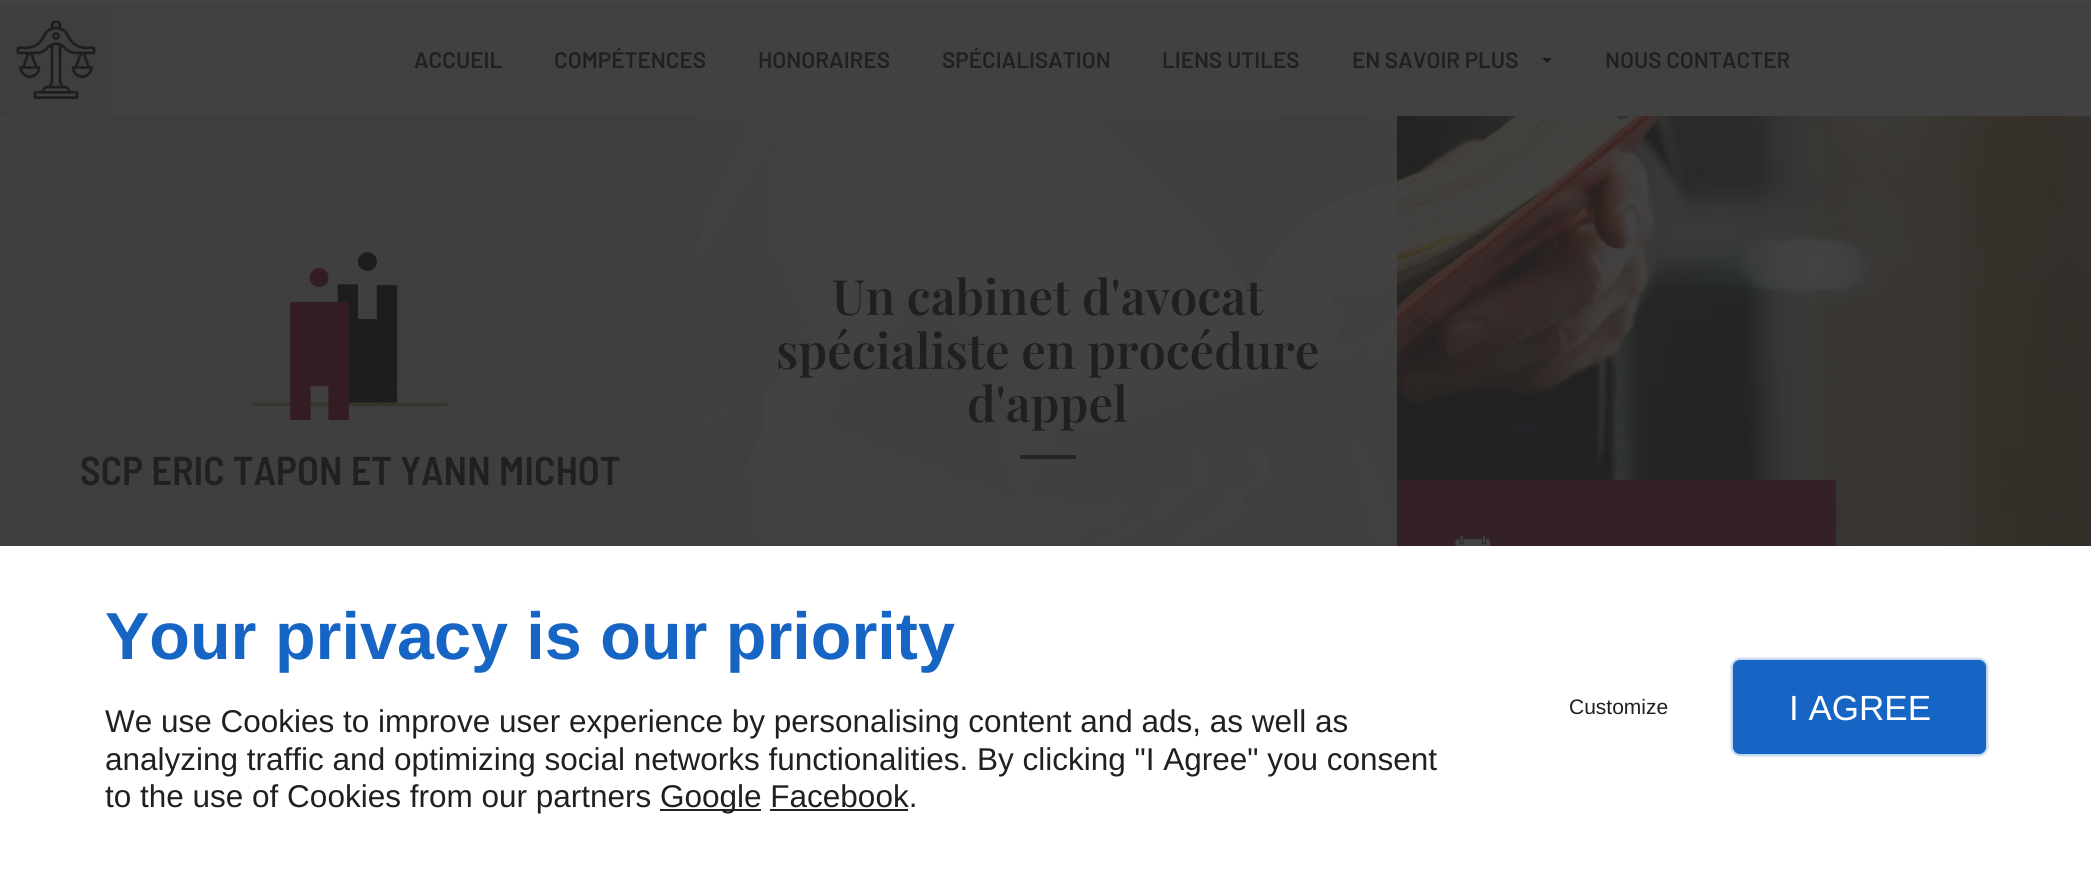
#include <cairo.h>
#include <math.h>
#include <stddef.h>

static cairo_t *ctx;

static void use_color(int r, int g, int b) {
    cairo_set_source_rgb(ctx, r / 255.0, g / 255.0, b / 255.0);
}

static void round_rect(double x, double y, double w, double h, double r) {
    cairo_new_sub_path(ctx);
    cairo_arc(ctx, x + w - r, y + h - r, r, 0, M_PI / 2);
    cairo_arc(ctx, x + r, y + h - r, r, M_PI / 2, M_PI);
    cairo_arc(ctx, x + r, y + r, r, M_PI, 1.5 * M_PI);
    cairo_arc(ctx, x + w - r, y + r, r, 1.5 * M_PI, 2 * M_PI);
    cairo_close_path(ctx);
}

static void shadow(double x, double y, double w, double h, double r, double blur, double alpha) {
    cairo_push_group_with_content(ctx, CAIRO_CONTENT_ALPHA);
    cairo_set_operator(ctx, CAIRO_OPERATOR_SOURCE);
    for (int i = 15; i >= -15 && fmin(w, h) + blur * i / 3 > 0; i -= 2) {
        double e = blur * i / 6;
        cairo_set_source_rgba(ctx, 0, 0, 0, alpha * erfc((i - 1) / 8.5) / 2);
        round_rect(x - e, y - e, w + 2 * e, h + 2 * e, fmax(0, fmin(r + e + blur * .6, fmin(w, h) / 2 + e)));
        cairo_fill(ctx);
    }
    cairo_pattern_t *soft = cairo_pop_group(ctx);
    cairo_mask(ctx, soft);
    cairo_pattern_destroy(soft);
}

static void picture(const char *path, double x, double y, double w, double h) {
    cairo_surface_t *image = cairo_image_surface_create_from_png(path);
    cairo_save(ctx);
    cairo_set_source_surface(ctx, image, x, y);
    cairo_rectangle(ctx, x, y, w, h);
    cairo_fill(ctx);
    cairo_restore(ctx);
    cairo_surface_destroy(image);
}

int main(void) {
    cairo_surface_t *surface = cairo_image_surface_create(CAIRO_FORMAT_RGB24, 2091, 869);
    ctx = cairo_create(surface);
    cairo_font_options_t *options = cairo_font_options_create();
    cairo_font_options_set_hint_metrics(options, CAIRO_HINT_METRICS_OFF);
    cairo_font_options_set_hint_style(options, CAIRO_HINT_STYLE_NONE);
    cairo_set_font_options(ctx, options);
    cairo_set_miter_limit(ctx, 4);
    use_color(255, 255, 255);
    cairo_paint(ctx);
    use_color(67, 67, 67);
    cairo_rectangle(ctx, 0, 0, 2091, 4);
    cairo_fill(ctx);
    use_color(65, 65, 65);
    cairo_rectangle(ctx, 112, 4, 1979, 112);
    cairo_fill(ctx);
    use_color(62, 62, 62);
    cairo_rectangle(ctx, 0, 4, 112, 112);
    cairo_fill(ctx);
    picture("img1.png", 16, 20, 80, 80);
    cairo_select_font_face(ctx, "Barlow SemiBold", CAIRO_FONT_SLANT_NORMAL, CAIRO_FONT_WEIGHT_NORMAL);
    cairo_set_font_size(ctx, 22.5);
    use_color(32, 32, 32);
    cairo_move_to(ctx, 414, 68);
    cairo_show_text(ctx, "ACCUEIL");
    cairo_move_to(ctx, 554, 68);
    cairo_show_text(ctx, "COMPÉTENCES");
    cairo_move_to(ctx, 758, 68);
    cairo_show_text(ctx, "HONORAIRES");
    cairo_move_to(ctx, 942, 68);
    cairo_show_text(ctx, "SPÉCIALISATION");
    cairo_move_to(ctx, 1162, 68);
    cairo_show_text(ctx, "LIENS UTILES");
    cairo_move_to(ctx, 1352, 68);
    cairo_show_text(ctx, "EN SAVOIR PLUS");
    use_color(29, 29, 29);
    cairo_new_path(ctx);
    cairo_move_to(ctx, 1542, 58);
    cairo_line_to(ctx, 1552, 58);
    cairo_line_to(ctx, 1547, 63);
    cairo_close_path(ctx);
    cairo_fill(ctx);
    use_color(32, 32, 32);
    cairo_move_to(ctx, 1605, 68);
    cairo_show_text(ctx, "NOUS CONTACTER");
    picture("img2.png", 0, 116, 2091, 430);
    cairo_set_source_rgba(ctx, 0.263, 0.263, 0.263, 0.9);
    cairo_rectangle(ctx, 700, 116, 697, 430);
    cairo_fill(ctx);
    cairo_select_font_face(ctx, "Playfair Display SemiBold", CAIRO_FONT_SLANT_NORMAL, CAIRO_FONT_WEIGHT_NORMAL);
    cairo_set_font_size(ctx, 48.75);
    use_color(32, 32, 32);
    cairo_move_to(ctx, 832, 315);
    cairo_show_text(ctx, "Un cabinet d'avocat");
    cairo_move_to(ctx, 776, 369);
    cairo_show_text(ctx, "spécialiste en procédure");
    cairo_move_to(ctx, 967, 422);
    cairo_show_text(ctx, "d'appel");
    cairo_set_source_rgba(ctx, 0.114, 0.114, 0.114, 0.8);
    cairo_rectangle(ctx, 1020, 455, 56, 4);
    cairo_fill(ctx);
    cairo_set_source_rgba(ctx, 0.259, 0.259, 0.259, 0.9);
    cairo_rectangle(ctx, 0, 116, 700, 430);
    cairo_fill(ctx);
    picture("img3.png", 252, 251, 196, 169);
    cairo_select_font_face(ctx, "Barlow Semi Condensed SemiBold", CAIRO_FONT_SLANT_NORMAL, CAIRO_FONT_WEIGHT_NORMAL);
    cairo_set_font_size(ctx, 40.25);
    use_color(32, 32, 32);
    cairo_move_to(ctx, 80, 485);
    cairo_show_text(ctx, "SCP ERIC TAPON ET YANN MICHOT");
    use_color(51, 33, 39);
    cairo_rectangle(ctx, 1397, 480, 439, 66);
    cairo_fill(ctx);
    picture("img4.png", 1455, 536, 36, 10);
    cairo_select_font_face(ctx, "Liberation Sans", CAIRO_FONT_SLANT_NORMAL, CAIRO_FONT_WEIGHT_BOLD);
    cairo_set_font_size(ctx, 66.5);
    use_color(22, 101, 196);
    cairo_move_to(ctx, 105, 659);
    cairo_show_text(ctx, "Your privacy is our priority");
    cairo_select_font_face(ctx, "Liberation Sans", CAIRO_FONT_SLANT_NORMAL, CAIRO_FONT_WEIGHT_NORMAL);
    cairo_set_font_size(ctx, 31.5);
    use_color(32, 32, 32);
    cairo_move_to(ctx, 105, 732);
    cairo_show_text(ctx, "We use Cookies to improve user experience by personalising content and ads, as well as");
    cairo_move_to(ctx, 105, 770);
    cairo_show_text(ctx, "analyzing traffic and optimizing social networks functionalities. By clicking \"I Agree\" you consent");
    cairo_move_to(ctx, 105, 807);
    cairo_show_text(ctx, "to the use of Cookies from our partners");
    use_color(34, 34, 34);
    cairo_rectangle(ctx, 660, 809, 101, 2);
    cairo_fill(ctx);
    use_color(32, 32, 32);
    cairo_move_to(ctx, 660, 807);
    cairo_show_text(ctx, "Google Facebook.");
    use_color(34, 34, 34);
    cairo_rectangle(ctx, 770, 809, 138, 2);
    cairo_fill(ctx);
    cairo_set_font_size(ctx, 21);
    use_color(32, 32, 32);
    cairo_move_to(ctx, 1569, 714);
    cairo_show_text(ctx, "Customize");
    use_color(22, 101, 196);
    shadow(1731, 658, 257, 98, 9, 1, 0.3);
    use_color(22, 101, 196);
    round_rect(1735, 662, 249, 90, 5);
    cairo_fill_preserve(ctx);
    cairo_set_line_width(ctx, 4);
    cairo_stroke(ctx);
    cairo_set_font_size(ctx, 35);
    use_color(255, 255, 255);
    cairo_move_to(ctx, 1789, 720);
    cairo_show_text(ctx, "I AGREE");
    cairo_surface_write_to_png(surface, "result.png");
    cairo_font_options_destroy(options);
    cairo_destroy(ctx);
    cairo_surface_destroy(surface);
    return 0;
}
